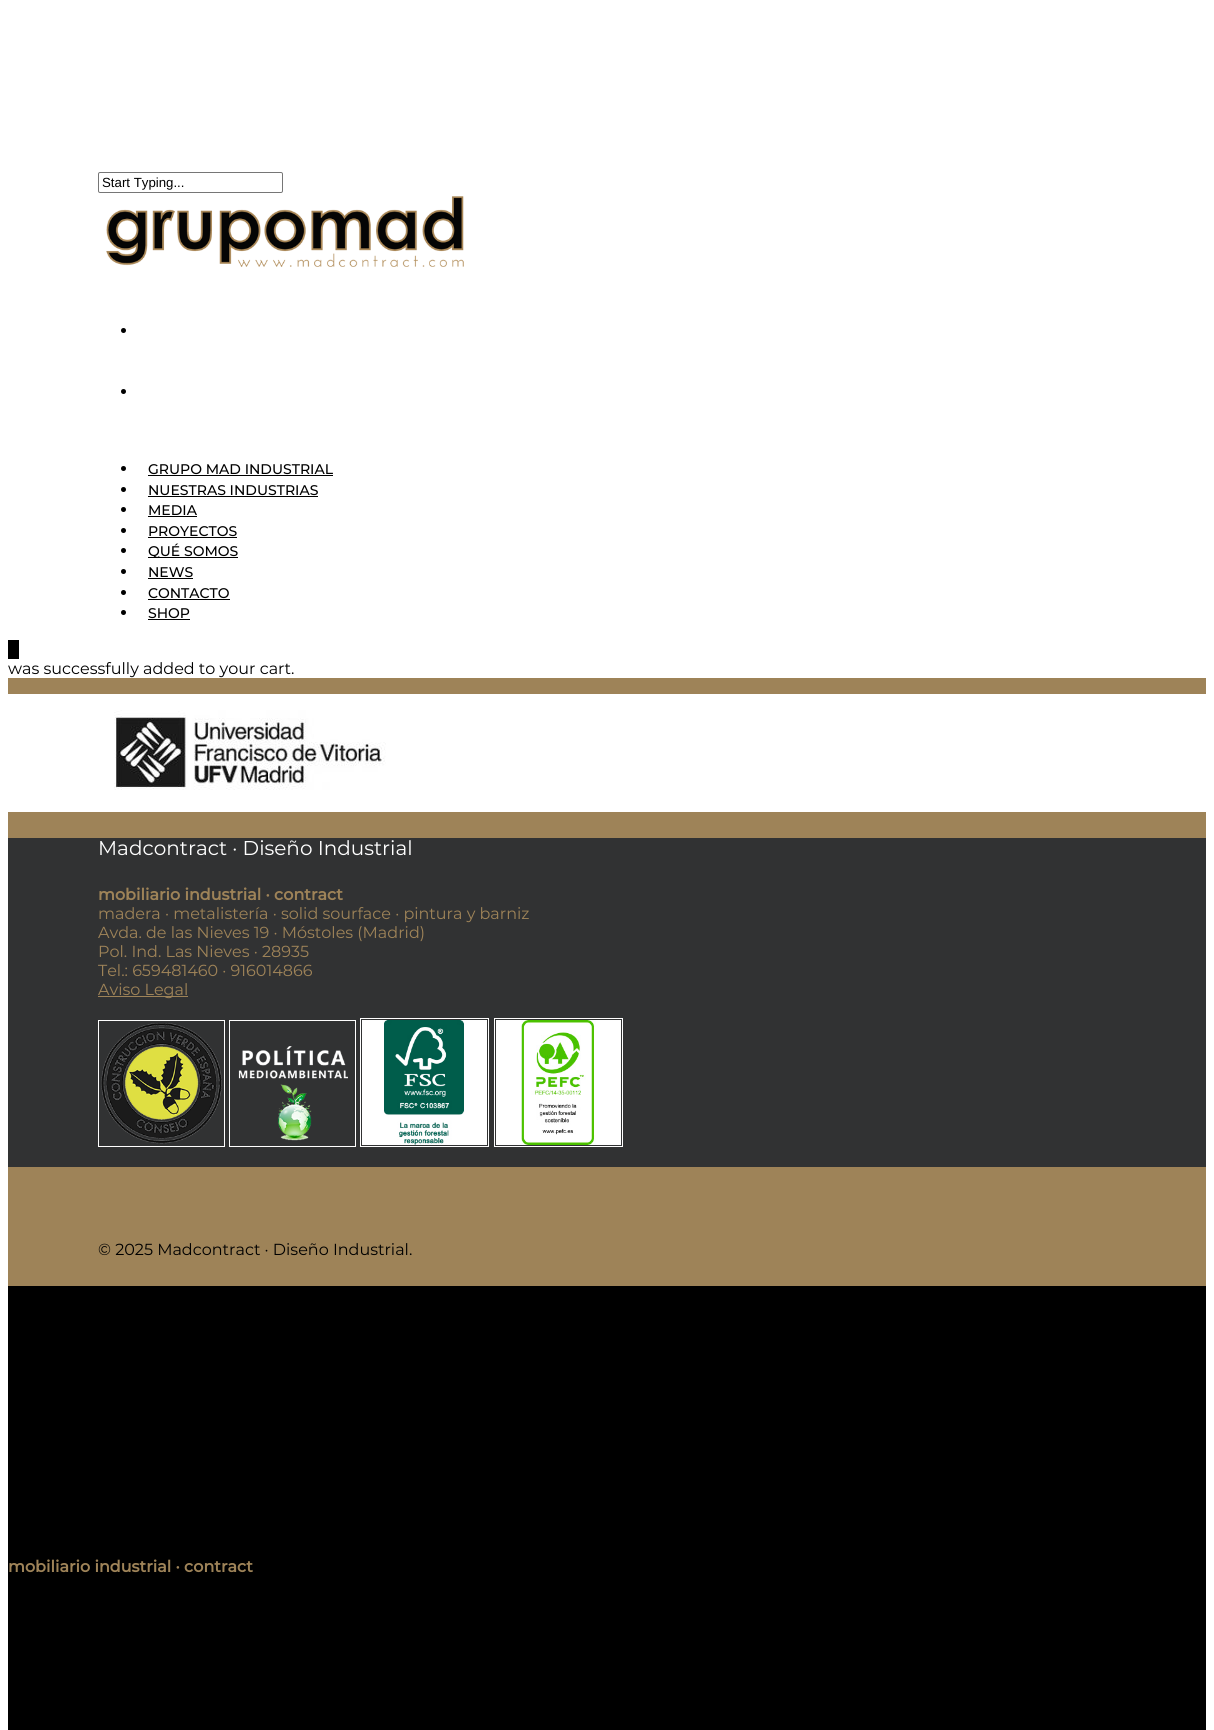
#include <cairo.h>
#include <math.h>
#include <stddef.h>

static cairo_t *ctx;

static void use_color(int r, int g, int b) {
    cairo_set_source_rgb(ctx, r / 255.0, g / 255.0, b / 255.0);
}

static void round_rect(double x, double y, double w, double h, double r) {
    cairo_new_sub_path(ctx);
    cairo_arc(ctx, x + w - r, y + h - r, r, 0, M_PI / 2);
    cairo_arc(ctx, x + r, y + h - r, r, M_PI / 2, M_PI);
    cairo_arc(ctx, x + r, y + r, r, M_PI, 1.5 * M_PI);
    cairo_arc(ctx, x + w - r, y + r, r, 1.5 * M_PI, 2 * M_PI);
    cairo_close_path(ctx);
}

static void picture(const char *path, double x, double y, double w, double h) {
    cairo_surface_t *image = cairo_image_surface_create_from_png(path);
    cairo_save(ctx);
    cairo_set_source_surface(ctx, image, x, y);
    cairo_rectangle(ctx, x, y, w, h);
    cairo_fill(ctx);
    cairo_restore(ctx);
    cairo_surface_destroy(image);
}

int main(void) {
    cairo_surface_t *surface = cairo_image_surface_create(CAIRO_FORMAT_RGB24, 1214, 1730);
    ctx = cairo_create(surface);
    cairo_font_options_t *options = cairo_font_options_create();
    cairo_font_options_set_hint_metrics(options, CAIRO_HINT_METRICS_OFF);
    cairo_font_options_set_hint_style(options, CAIRO_HINT_STYLE_NONE);
    cairo_set_font_options(ctx, options);
    cairo_set_miter_limit(ctx, 4);
    use_color(255, 255, 255);
    cairo_paint(ctx);
    use_color(158, 131, 88);
    cairo_rectangle(ctx, 8, 678, 1198, 608);
    cairo_fill(ctx);
    round_rect(98.5, 172.5, 184, 20, 1.5);
    use_color(118, 118, 118);
    cairo_set_line_width(ctx, 1);
    cairo_stroke(ctx);
    cairo_select_font_face(ctx, "Liberation Sans", CAIRO_FONT_SLANT_NORMAL, CAIRO_FONT_WEIGHT_NORMAL);
    cairo_set_font_size(ctx, 13.25);
    use_color(0, 0, 0);
    cairo_move_to(ctx, 102, 187);
    cairo_show_text(ctx, "Start Typing...");
    picture("img1.png", 106, 196, 358, 71);
    cairo_arc(ctx, 123.5, 330.5, 2.5, 0, 2 * M_PI);
    cairo_fill(ctx);
    cairo_arc(ctx, 123.5, 391.5, 2.5, 0, 2 * M_PI);
    cairo_fill(ctx);
    cairo_arc(ctx, 123.5, 468.5, 2.5, 0, 2 * M_PI);
    cairo_fill(ctx);
    cairo_select_font_face(ctx, "Montserrat Medium", CAIRO_FONT_SLANT_NORMAL, CAIRO_FONT_WEIGHT_NORMAL);
    cairo_set_font_size(ctx, 14);
    cairo_move_to(ctx, 148, 474);
    cairo_show_text(ctx, "GRUPO MAD INDUSTRIAL");
    cairo_rectangle(ctx, 148, 475, 185, 1);
    cairo_fill(ctx);
    cairo_arc(ctx, 123.5, 489.5, 2.5, 0, 2 * M_PI);
    cairo_fill(ctx);
    cairo_move_to(ctx, 148, 495);
    cairo_show_text(ctx, "NUESTRAS INDUSTRIAS");
    cairo_rectangle(ctx, 148, 496, 170, 1);
    cairo_fill(ctx);
    cairo_arc(ctx, 123.5, 509.5, 2.5, 0, 2 * M_PI);
    cairo_fill(ctx);
    cairo_move_to(ctx, 148, 515);
    cairo_show_text(ctx, "MEDIA");
    cairo_rectangle(ctx, 148, 516, 49, 1);
    cairo_fill(ctx);
    cairo_arc(ctx, 123.5, 530.5, 2.5, 0, 2 * M_PI);
    cairo_fill(ctx);
    cairo_move_to(ctx, 148, 536);
    cairo_show_text(ctx, "PROYECTOS");
    cairo_rectangle(ctx, 148, 537, 89, 1);
    cairo_fill(ctx);
    cairo_arc(ctx, 123.5, 550.5, 2.5, 0, 2 * M_PI);
    cairo_fill(ctx);
    cairo_rectangle(ctx, 148, 557, 90, 1);
    cairo_fill(ctx);
    cairo_move_to(ctx, 148, 556);
    cairo_show_text(ctx, "QUÉ SOMOS");
    cairo_new_path(ctx);
    cairo_arc(ctx, 123.5, 571.5, 2.5, 0, 2 * M_PI);
    cairo_fill(ctx);
    cairo_move_to(ctx, 148, 577);
    cairo_show_text(ctx, "NEWS");
    cairo_rectangle(ctx, 148, 578, 45, 1);
    cairo_fill(ctx);
    cairo_arc(ctx, 123.5, 592.5, 2.5, 0, 2 * M_PI);
    cairo_fill(ctx);
    cairo_move_to(ctx, 148, 598);
    cairo_show_text(ctx, "CONTACTO");
    cairo_rectangle(ctx, 148, 599, 82, 1);
    cairo_fill(ctx);
    cairo_arc(ctx, 123.5, 612.5, 2.5, 0, 2 * M_PI);
    cairo_fill(ctx);
    cairo_move_to(ctx, 148, 618);
    cairo_show_text(ctx, "SHOP");
    cairo_rectangle(ctx, 148, 619, 42, 1);
    cairo_fill(ctx);
    cairo_rectangle(ctx, 8, 640, 11, 19);
    cairo_fill(ctx);
    cairo_select_font_face(ctx, "Montserrat", CAIRO_FONT_SLANT_NORMAL, CAIRO_FONT_WEIGHT_NORMAL);
    cairo_set_font_size(ctx, 16);
    cairo_move_to(ctx, 8, 674);
    cairo_show_text(ctx, "was successfully added to your cart.");
    use_color(255, 255, 255);
    cairo_rectangle(ctx, 8, 694, 1198, 118);
    cairo_fill(ctx);
    picture("img2.png", 114, 710, 272, 80);
    use_color(49, 50, 51);
    cairo_rectangle(ctx, 8, 838, 1198, 329);
    cairo_fill(ctx);
    cairo_set_font_size(ctx, 20);
    use_color(255, 255, 255);
    cairo_move_to(ctx, 98, 855);
    cairo_show_text(ctx, "Madcontract · Diseño Industrial");
    cairo_select_font_face(ctx, "Montserrat", CAIRO_FONT_SLANT_NORMAL, CAIRO_FONT_WEIGHT_BOLD);
    cairo_set_font_size(ctx, 16);
    use_color(158, 131, 88);
    cairo_move_to(ctx, 98, 900);
    cairo_show_text(ctx, "mobiliario industrial · contract");
    cairo_select_font_face(ctx, "Montserrat", CAIRO_FONT_SLANT_NORMAL, CAIRO_FONT_WEIGHT_NORMAL);
    cairo_move_to(ctx, 98, 919);
    cairo_show_text(ctx, "madera · metalistería · solid sourface · pintura y barniz");
    cairo_move_to(ctx, 98, 938);
    cairo_show_text(ctx, "Avda. de las Nieves 19 · Móstoles (Madrid)");
    cairo_move_to(ctx, 98, 957);
    cairo_show_text(ctx, "Pol. Ind. Las Nieves · 28935");
    cairo_move_to(ctx, 98, 976);
    cairo_show_text(ctx, "Tel.: 659481460 · 916014866");
    cairo_rectangle(ctx, 98, 996, 90, 1);
    cairo_fill(ctx);
    cairo_move_to(ctx, 98, 995);
    cairo_show_text(ctx, "Aviso Legal");
    cairo_rectangle(ctx, 98.5, 1020.5, 126, 126);
    use_color(255, 255, 255);
    cairo_stroke(ctx);
    cairo_rectangle(ctx, 229.5, 1020.5, 126, 126);
    cairo_stroke(ctx);
    cairo_rectangle(ctx, 360.5, 1018.5, 128, 128);
    cairo_stroke(ctx);
    cairo_rectangle(ctx, 494.5, 1018.5, 128, 128);
    cairo_stroke(ctx);
    picture("img3.png", 101, 1023, 121, 121);
    picture("img4.png", 238, 1046, 110, 95);
    picture("img5.png", 362, 1020, 125, 125);
    picture("img6.png", 496, 1020, 125, 125);
    use_color(0, 0, 0);
    cairo_move_to(ctx, 98, 1255);
    cairo_show_text(ctx, "© 2025 Madcontract · Diseño Industrial.");
    cairo_rectangle(ctx, 8, 1286, 1198, 444);
    cairo_fill(ctx);
    cairo_select_font_face(ctx, "Montserrat", CAIRO_FONT_SLANT_NORMAL, CAIRO_FONT_WEIGHT_BOLD);
    use_color(158, 131, 88);
    cairo_move_to(ctx, 8, 1572);
    cairo_show_text(ctx, "mobiliario industrial · contract");
    cairo_surface_write_to_png(surface, "result.png");
    cairo_font_options_destroy(options);
    cairo_destroy(ctx);
    cairo_surface_destroy(surface);
    return 0;
}
